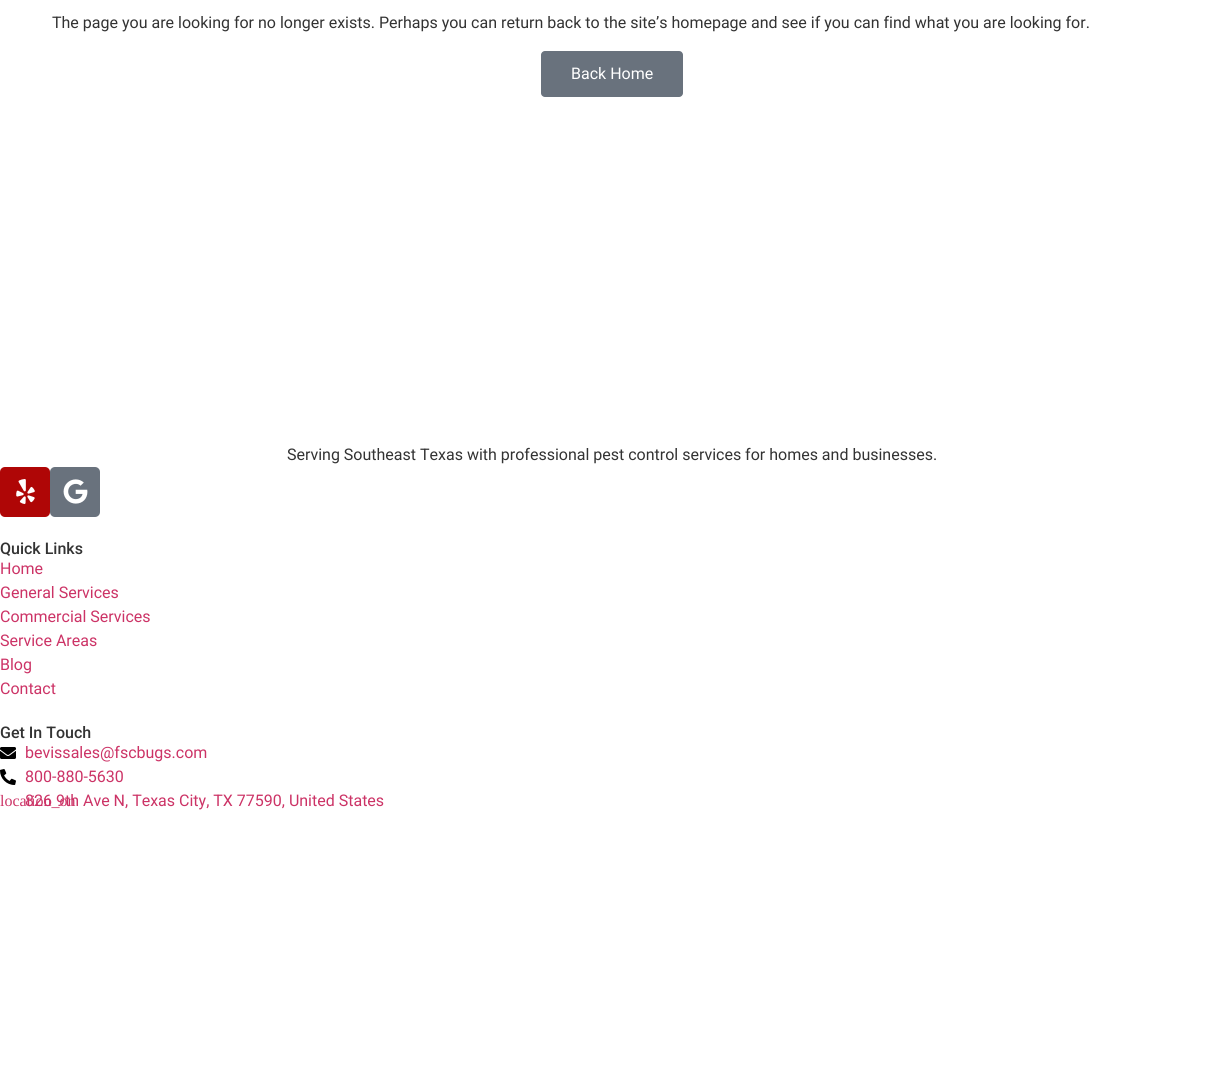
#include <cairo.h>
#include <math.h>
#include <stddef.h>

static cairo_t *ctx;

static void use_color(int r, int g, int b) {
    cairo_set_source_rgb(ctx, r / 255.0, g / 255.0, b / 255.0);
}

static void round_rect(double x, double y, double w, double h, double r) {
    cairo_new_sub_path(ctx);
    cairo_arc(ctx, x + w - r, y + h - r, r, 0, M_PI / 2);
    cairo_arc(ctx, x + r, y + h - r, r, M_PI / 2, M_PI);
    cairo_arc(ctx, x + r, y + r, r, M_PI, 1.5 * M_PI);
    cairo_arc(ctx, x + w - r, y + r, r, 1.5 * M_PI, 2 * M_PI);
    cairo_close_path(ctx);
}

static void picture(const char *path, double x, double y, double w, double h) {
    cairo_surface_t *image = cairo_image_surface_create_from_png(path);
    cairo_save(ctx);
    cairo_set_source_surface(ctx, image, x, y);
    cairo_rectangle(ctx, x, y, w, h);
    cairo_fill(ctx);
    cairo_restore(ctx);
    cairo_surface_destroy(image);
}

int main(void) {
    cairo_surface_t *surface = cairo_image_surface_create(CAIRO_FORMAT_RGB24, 1224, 1084);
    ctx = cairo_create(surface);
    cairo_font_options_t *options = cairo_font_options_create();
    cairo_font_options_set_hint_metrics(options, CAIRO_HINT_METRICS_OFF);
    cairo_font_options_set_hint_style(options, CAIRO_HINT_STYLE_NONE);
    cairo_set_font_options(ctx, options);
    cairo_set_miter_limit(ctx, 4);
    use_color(255, 255, 255);
    cairo_paint(ctx);
    cairo_select_font_face(ctx, "Roboto", CAIRO_FONT_SLANT_NORMAL, CAIRO_FONT_WEIGHT_NORMAL);
    cairo_set_font_size(ctx, 16);
    use_color(51, 51, 51);
    cairo_move_to(ctx, 52, 28);
    cairo_show_text(ctx, "The page you are looking for no longer exists. Perhaps you can return back to the site’s homepage and see if you can find what you are looking for.");
    use_color(105, 114, 125);
    round_rect(541, 51, 142, 46, 4);
    cairo_fill(ctx);
    use_color(255, 255, 255);
    cairo_move_to(ctx, 571, 79);
    cairo_show_text(ctx, "Back Home");
    use_color(51, 51, 51);
    cairo_move_to(ctx, 287, 460);
    cairo_show_text(ctx, "Serving Southeast Texas with professional pest control services for homes and businesses.");
    use_color(175, 6, 6);
    round_rect(0, 467, 50, 50, 5);
    cairo_fill(ctx);
    picture("img1.png", 16, 479, 19, 25);
    use_color(105, 114, 125);
    round_rect(50, 467, 50, 50, 5);
    cairo_fill(ctx);
    picture("img2.png", 63, 479, 25, 25);
    cairo_select_font_face(ctx, "Roboto Medium", CAIRO_FONT_SLANT_NORMAL, CAIRO_FONT_WEIGHT_NORMAL);
    use_color(51, 51, 51);
    cairo_move_to(ctx, 0, 554);
    cairo_show_text(ctx, "Quick Links");
    cairo_select_font_face(ctx, "Roboto", CAIRO_FONT_SLANT_NORMAL, CAIRO_FONT_WEIGHT_NORMAL);
    use_color(204, 51, 102);
    cairo_move_to(ctx, 0, 574);
    cairo_show_text(ctx, "Home");
    cairo_move_to(ctx, 0, 598);
    cairo_show_text(ctx, "General Services");
    cairo_move_to(ctx, 0, 622);
    cairo_show_text(ctx, "Commercial Services");
    cairo_move_to(ctx, 0, 646);
    cairo_show_text(ctx, "Service Areas");
    cairo_move_to(ctx, 0, 670);
    cairo_show_text(ctx, "Blog");
    cairo_move_to(ctx, 0, 694);
    cairo_show_text(ctx, "Contact");
    cairo_select_font_face(ctx, "Roboto Medium", CAIRO_FONT_SLANT_NORMAL, CAIRO_FONT_WEIGHT_NORMAL);
    use_color(51, 51, 51);
    cairo_move_to(ctx, 0, 738);
    cairo_show_text(ctx, "Get In Touch");
    picture("img3.png", 0, 747, 16, 12);
    cairo_select_font_face(ctx, "Roboto", CAIRO_FONT_SLANT_NORMAL, CAIRO_FONT_WEIGHT_NORMAL);
    use_color(204, 51, 102);
    cairo_move_to(ctx, 25, 758);
    cairo_show_text(ctx, "bevissales@fscbugs.com");
    picture("img4.png", 0, 769, 16, 16);
    cairo_move_to(ctx, 25, 782);
    cairo_show_text(ctx, "800-880-5630");
    cairo_move_to(ctx, 25, 806);
    cairo_show_text(ctx, "826 9th Ave N, Texas City, TX 77590, United States");
    cairo_select_font_face(ctx, "Liberation Serif", CAIRO_FONT_SLANT_NORMAL, CAIRO_FONT_WEIGHT_NORMAL);
    cairo_move_to(ctx, 0, 806);
    cairo_show_text(ctx, "location_on");
    cairo_surface_write_to_png(surface, "result.png");
    cairo_font_options_destroy(options);
    cairo_destroy(ctx);
    cairo_surface_destroy(surface);
    return 0;
}
